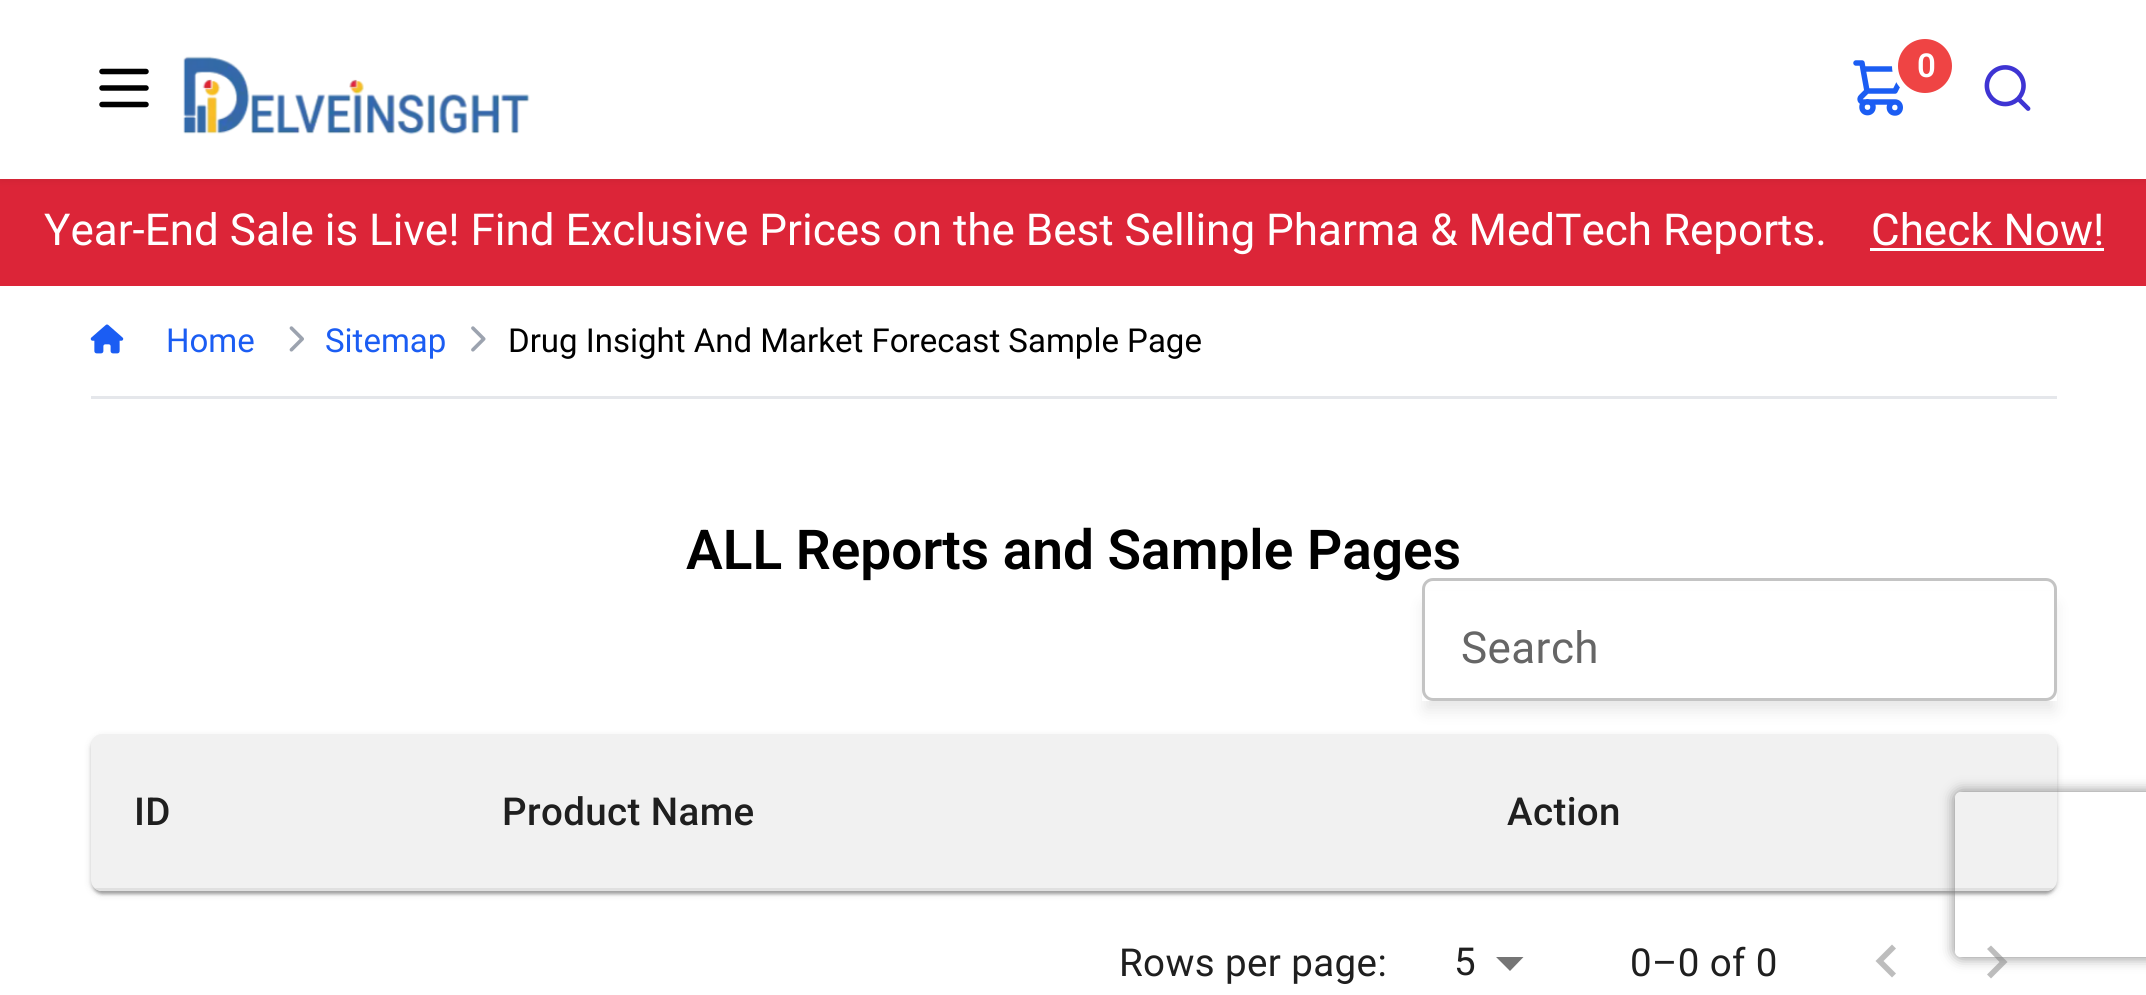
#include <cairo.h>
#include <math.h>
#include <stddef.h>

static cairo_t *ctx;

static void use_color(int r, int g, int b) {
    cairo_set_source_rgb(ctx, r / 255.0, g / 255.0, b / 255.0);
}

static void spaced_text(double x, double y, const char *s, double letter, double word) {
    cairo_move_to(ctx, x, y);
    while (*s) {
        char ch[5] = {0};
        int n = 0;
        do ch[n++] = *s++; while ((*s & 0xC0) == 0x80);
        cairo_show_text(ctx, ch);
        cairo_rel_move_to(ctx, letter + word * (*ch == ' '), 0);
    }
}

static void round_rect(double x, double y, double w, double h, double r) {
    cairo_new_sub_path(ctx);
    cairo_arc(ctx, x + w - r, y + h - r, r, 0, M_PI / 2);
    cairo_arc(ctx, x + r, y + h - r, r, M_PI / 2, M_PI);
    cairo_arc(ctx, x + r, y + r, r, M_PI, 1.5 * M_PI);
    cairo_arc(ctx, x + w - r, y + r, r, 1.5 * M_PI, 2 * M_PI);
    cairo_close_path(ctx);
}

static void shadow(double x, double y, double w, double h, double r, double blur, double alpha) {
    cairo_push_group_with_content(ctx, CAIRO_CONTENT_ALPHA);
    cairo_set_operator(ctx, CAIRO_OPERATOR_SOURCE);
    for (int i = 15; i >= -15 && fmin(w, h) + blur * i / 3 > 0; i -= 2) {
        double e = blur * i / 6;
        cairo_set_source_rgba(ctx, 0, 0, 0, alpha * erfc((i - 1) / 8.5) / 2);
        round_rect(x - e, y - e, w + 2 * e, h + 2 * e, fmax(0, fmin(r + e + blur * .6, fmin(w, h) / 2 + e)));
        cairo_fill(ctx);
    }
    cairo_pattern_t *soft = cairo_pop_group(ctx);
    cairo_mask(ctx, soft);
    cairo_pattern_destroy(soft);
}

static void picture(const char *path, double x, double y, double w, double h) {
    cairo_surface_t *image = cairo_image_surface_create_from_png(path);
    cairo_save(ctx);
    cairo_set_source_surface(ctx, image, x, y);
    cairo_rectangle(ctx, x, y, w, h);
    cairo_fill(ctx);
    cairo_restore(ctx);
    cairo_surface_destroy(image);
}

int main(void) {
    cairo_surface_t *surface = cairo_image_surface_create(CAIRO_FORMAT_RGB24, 2146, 995);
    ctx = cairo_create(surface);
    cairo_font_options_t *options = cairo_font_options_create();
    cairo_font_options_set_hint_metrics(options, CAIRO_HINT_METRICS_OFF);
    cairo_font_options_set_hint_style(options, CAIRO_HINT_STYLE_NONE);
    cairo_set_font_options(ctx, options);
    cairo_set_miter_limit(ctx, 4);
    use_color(255, 255, 255);
    cairo_paint(ctx);
    use_color(220, 37, 56);
    cairo_rectangle(ctx, 0, 179, 2146, 107);
    cairo_fill(ctx);
    use_color(0, 0, 0);
    shadow(0, 3, 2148, 179, 0, 3, 0.05);
    use_color(255, 255, 255);
    cairo_rectangle(ctx, 0, 0, 2146, 179);
    cairo_fill(ctx);
    cairo_new_path(ctx);
    cairo_move_to(ctx, 102, 71.5);
    cairo_line_to(ctx, 146, 71.5);
    cairo_move_to(ctx, 102, 88);
    cairo_line_to(ctx, 146, 88);
    cairo_move_to(ctx, 102, 104.5);
    cairo_line_to(ctx, 146, 104.5);
    use_color(0, 0, 0);
    cairo_set_line_width(ctx, 5.5);
    cairo_set_line_cap(ctx, CAIRO_LINE_CAP_ROUND);
    cairo_set_line_join(ctx, CAIRO_LINE_JOIN_ROUND);
    cairo_stroke(ctx);
    picture("img1.png", 183, 56, 347, 79);
    cairo_new_path(ctx);
    cairo_move_to(ctx, 1856, 63);
    cairo_line_to(ctx, 1862, 63);
    cairo_line_to(ctx, 1863, 69);
    cairo_move_to(ctx, 1867, 91);
    cairo_line_to(ctx, 1895, 91);
    cairo_line_to(ctx, 1906, 69);
    cairo_line_to(ctx, 1863, 69);
    cairo_move_to(ctx, 1867, 91);
    cairo_line_to(ctx, 1863, 69);
    cairo_move_to(ctx, 1867, 91);
    cairo_line_to(ctx, 1861, 97);
    cairo_curve_to(ctx, 1859, 99, 1860.5, 102, 1863, 102);
    cairo_line_to(ctx, 1895, 102);
    cairo_move_to(ctx, 1895, 102);
    cairo_curve_to(ctx, 1887.5, 102, 1887.5, 113, 1895, 113);
    cairo_curve_to(ctx, 1902, 113, 1902, 102, 1895, 102);
    cairo_close_path(ctx);
    cairo_move_to(ctx, 1873, 107);
    cairo_curve_to(ctx, 1873, 114.5, 1862, 114.5, 1862, 107);
    cairo_curve_to(ctx, 1862, 100, 1873, 100, 1873, 107);
    cairo_close_path(ctx);
    use_color(27, 93, 243);
    cairo_stroke(ctx);
    use_color(239, 68, 68);
    cairo_arc(ctx, 1925, 66, 30, 0, 2 * M_PI);
    cairo_fill_preserve(ctx);
    use_color(255, 255, 255);
    cairo_set_line_width(ctx, 6);
    cairo_set_line_cap(ctx, CAIRO_LINE_CAP_BUTT);
    cairo_set_line_join(ctx, CAIRO_LINE_JOIN_MITER);
    cairo_stroke(ctx);
    cairo_select_font_face(ctx, "Roboto SemiBold", CAIRO_FONT_SLANT_NORMAL, CAIRO_FONT_WEIGHT_NORMAL);
    cairo_set_font_size(ctx, 33);
    cairo_move_to(ctx, 1917, 77);
    cairo_show_text(ctx, "0");
    picture("img2.png", 1984, 65, 47, 46);
    cairo_select_font_face(ctx, "Roboto", CAIRO_FONT_SLANT_NORMAL, CAIRO_FONT_WEIGHT_NORMAL);
    cairo_set_font_size(ctx, 44);
    cairo_move_to(ctx, 44, 245);
    cairo_show_text(ctx, "Year-End Sale is Live! Find Exclusive Prices on the Best Selling Pharma & MedTech Reports.");
    cairo_move_to(ctx, 1871, 245);
    cairo_show_text(ctx, "Check Now!");
    cairo_rectangle(ctx, 1870, 248, 234, 3);
    cairo_fill(ctx);
    use_color(229, 231, 235);
    cairo_rectangle(ctx, 91, 396, 1966, 3);
    cairo_fill(ctx);
    picture("img3.png", 90, 324, 34, 30);
    cairo_set_font_size(ctx, 33);
    use_color(27, 93, 243);
    cairo_move_to(ctx, 166, 352);
    cairo_show_text(ctx, "Home");
    picture("img4.png", 289, 326, 15, 26);
    cairo_move_to(ctx, 325, 352);
    cairo_show_text(ctx, "Sitemap");
    picture("img5.png", 471, 326, 15, 26);
    use_color(0, 0, 0);
    cairo_move_to(ctx, 508, 352);
    cairo_show_text(ctx, "Drug Insight And Market Forecast Sample Page");
    cairo_select_font_face(ctx, "Roboto SemiBold", CAIRO_FONT_SLANT_NORMAL, CAIRO_FONT_WEIGHT_NORMAL);
    cairo_set_font_size(ctx, 55);
    cairo_move_to(ctx, 686, 569);
    cairo_show_text(ctx, "ALL Reports and Sample Pages");
    use_color(0, 0, 0);
    shadow(91, 737, 1966, 157, 11, 4, 0.12);
    shadow(91, 737, 1966, 157, 11, 1.5, 0.14);
    shadow(94, 743, 1960, 151, 8, 1.5, 0.2);
    use_color(241, 241, 241);
    round_rect(91, 734, 1966, 157, 11);
    cairo_fill(ctx);
    cairo_save(ctx);
    cairo_set_fill_rule(ctx, CAIRO_FILL_RULE_EVEN_ODD);
    cairo_new_path(ctx);
    cairo_move_to(ctx, 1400, 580);
    cairo_line_to(ctx, 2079, 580);
    cairo_line_to(ctx, 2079, 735);
    cairo_line_to(ctx, 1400, 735);
    cairo_close_path(ctx);
    cairo_move_to(ctx, 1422, 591);
    cairo_line_to(ctx, 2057, 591);
    cairo_line_to(ctx, 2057, 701);
    cairo_line_to(ctx, 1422, 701);
    cairo_close_path(ctx);
    cairo_clip(ctx);
    use_color(0, 0, 0);
    shadow(1425, 605, 629, 105, 0, 8, 0.1);
    cairo_restore(ctx);
    round_rect(1423.5, 579.5, 632, 120, 9.5);
    use_color(196, 196, 196);
    cairo_set_line_width(ctx, 3);
    cairo_stroke(ctx);
    cairo_select_font_face(ctx, "Roboto", CAIRO_FONT_SLANT_NORMAL, CAIRO_FONT_WEIGHT_NORMAL);
    cairo_set_font_size(ctx, 44);
    use_color(102, 102, 102);
    spaced_text(1461, 663, "Search", 0.4, 0);
    cairo_save(ctx);
    round_rect(91, 734, 1966, 157, 11);
    cairo_clip(ctx);
    use_color(224, 224, 224);
    cairo_rectangle(ctx, 1460, 888, 597, 3);
    cairo_fill(ctx);
    cairo_restore(ctx);
    use_color(224, 224, 224);
    cairo_rectangle(ctx, 457, 888, 1006, 3);
    cairo_fill(ctx);
    cairo_save(ctx);
    round_rect(91, 734, 1966, 157, 11);
    cairo_clip(ctx);
    cairo_rectangle(ctx, 91, 888, 368, 3);
    cairo_fill(ctx);
    cairo_restore(ctx);
    cairo_select_font_face(ctx, "Roboto Medium", CAIRO_FONT_SLANT_NORMAL, CAIRO_FONT_WEIGHT_NORMAL);
    cairo_set_font_size(ctx, 38.5);
    use_color(31, 31, 31);
    spaced_text(134, 825, "ID", 0.4, 0);
    spaced_text(502, 825, "Product Name", 0.4, 0);
    spaced_text(1507, 825, "Action", 0.4, 0);
    cairo_select_font_face(ctx, "Roboto", CAIRO_FONT_SLANT_NORMAL, CAIRO_FONT_WEIGHT_NORMAL);
    spaced_text(1119, 976, "Rows per page:", 0.4, 0);
    cairo_move_to(ctx, 1454, 975);
    cairo_show_text(ctx, "5");
    use_color(117, 117, 117);
    cairo_new_path(ctx);
    cairo_move_to(ctx, 1496, 957);
    cairo_line_to(ctx, 1510, 971);
    cairo_line_to(ctx, 1523.5, 957);
    cairo_close_path(ctx);
    cairo_fill(ctx);
    use_color(31, 31, 31);
    spaced_text(1630, 976, "0–0 of 0", 0.4, 0);
    use_color(189, 189, 189);
    cairo_new_path(ctx);
    cairo_move_to(ctx, 1896, 973.5);
    cairo_line_to(ctx, 1883.5, 961);
    cairo_line_to(ctx, 1896, 948.5);
    cairo_line_to(ctx, 1892, 944.5);
    cairo_line_to(ctx, 1875.5, 961);
    cairo_line_to(ctx, 1892, 977.5);
    cairo_close_path(ctx);
    cairo_fill(ctx);
    cairo_new_path(ctx);
    cairo_move_to(ctx, 1987, 974.5);
    cairo_line_to(ctx, 1999.5, 962);
    cairo_line_to(ctx, 1987, 949);
    cairo_line_to(ctx, 1991, 945.5);
    cairo_line_to(ctx, 2007.5, 962);
    cairo_line_to(ctx, 1991, 978.5);
    cairo_close_path(ctx);
    cairo_fill(ctx);
    cairo_save(ctx);
    cairo_set_fill_rule(ctx, CAIRO_FILL_RULE_EVEN_ODD);
    cairo_new_path(ctx);
    cairo_move_to(ctx, 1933, 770);
    cairo_line_to(ctx, 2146, 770);
    cairo_line_to(ctx, 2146, 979);
    cairo_line_to(ctx, 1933, 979);
    cairo_close_path(ctx);
    cairo_move_to(ctx, 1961, 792);
    cairo_line_to(ctx, 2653, 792);
    cairo_curve_to(ctx, 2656.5, 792, 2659, 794.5, 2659, 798);
    cairo_line_to(ctx, 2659, 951);
    cairo_curve_to(ctx, 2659, 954.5, 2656.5, 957, 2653, 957);
    cairo_line_to(ctx, 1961, 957);
    cairo_curve_to(ctx, 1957.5, 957, 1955, 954.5, 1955, 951);
    cairo_line_to(ctx, 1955, 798);
    cairo_curve_to(ctx, 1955, 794.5, 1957.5, 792, 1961, 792);
    cairo_close_path(ctx);
    cairo_clip(ctx);
    use_color(128, 128, 128);
    shadow(1955, 792, 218, 165, 6, 7, 1);
    cairo_restore(ctx);
    cairo_surface_write_to_png(surface, "result.png");
    cairo_font_options_destroy(options);
    cairo_destroy(ctx);
    cairo_surface_destroy(surface);
    return 0;
}
